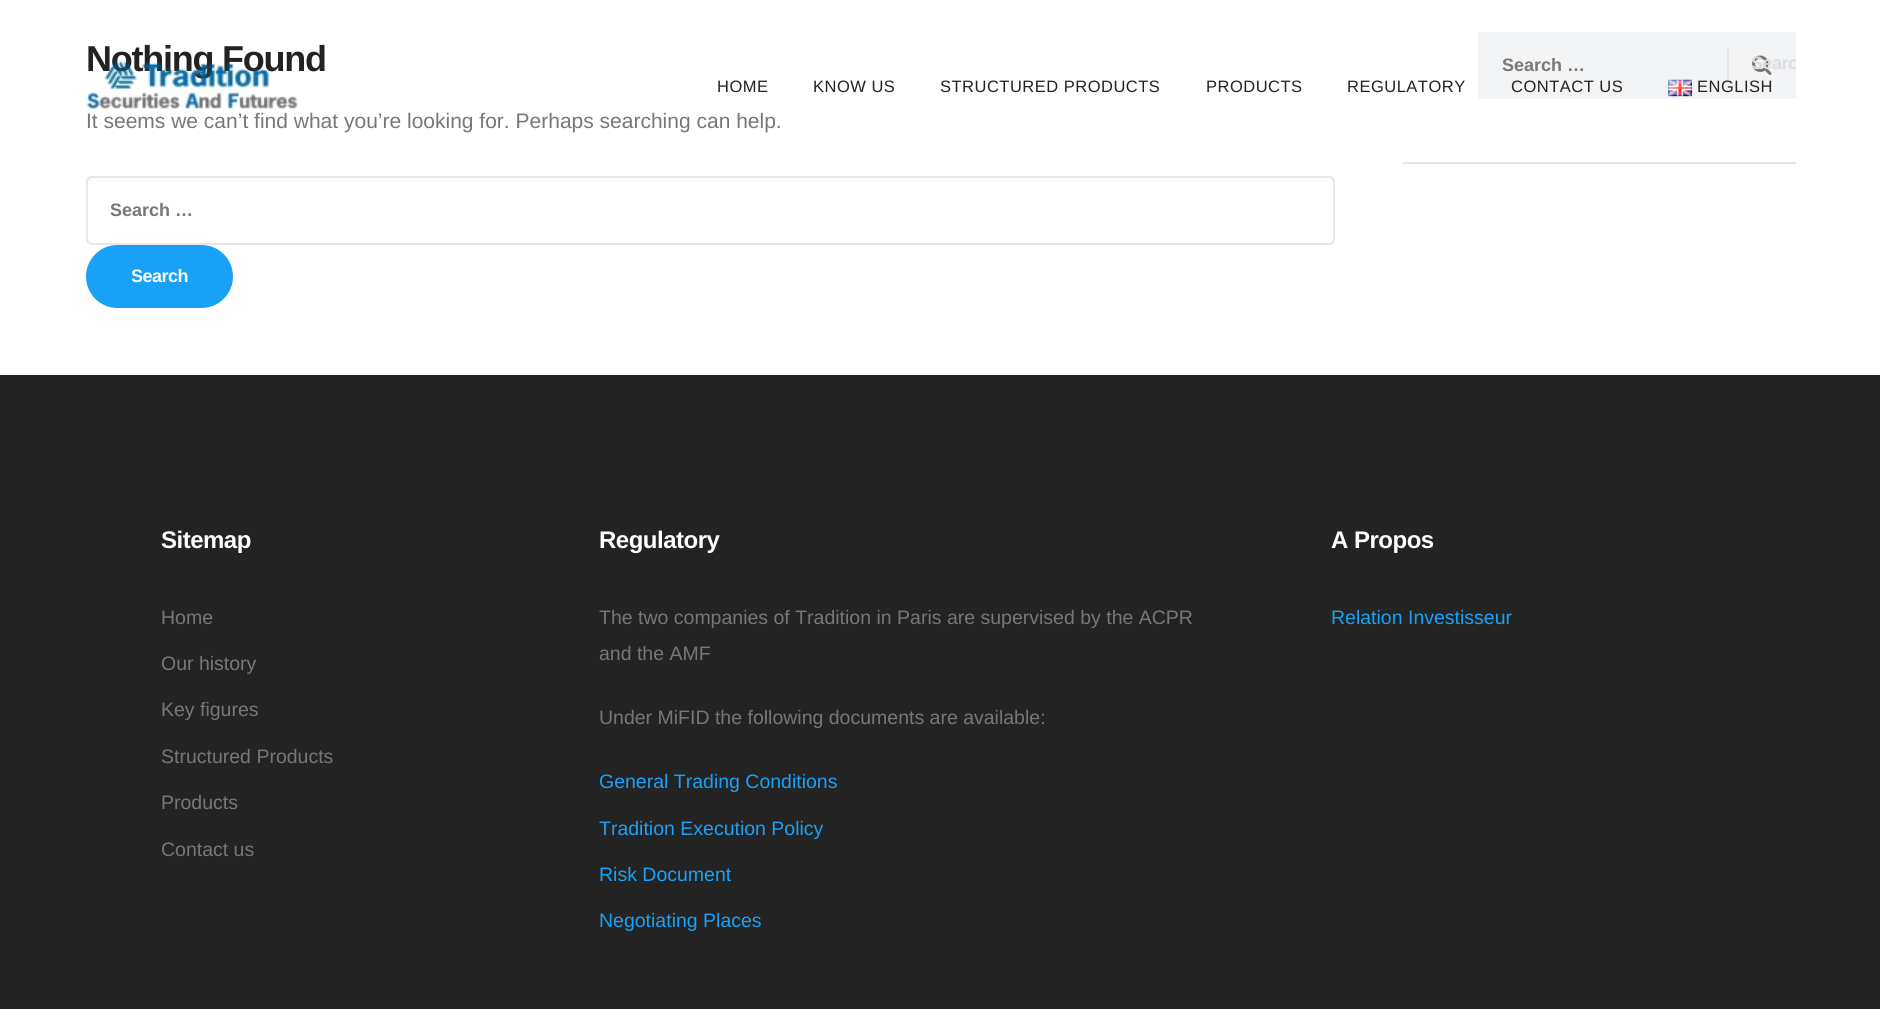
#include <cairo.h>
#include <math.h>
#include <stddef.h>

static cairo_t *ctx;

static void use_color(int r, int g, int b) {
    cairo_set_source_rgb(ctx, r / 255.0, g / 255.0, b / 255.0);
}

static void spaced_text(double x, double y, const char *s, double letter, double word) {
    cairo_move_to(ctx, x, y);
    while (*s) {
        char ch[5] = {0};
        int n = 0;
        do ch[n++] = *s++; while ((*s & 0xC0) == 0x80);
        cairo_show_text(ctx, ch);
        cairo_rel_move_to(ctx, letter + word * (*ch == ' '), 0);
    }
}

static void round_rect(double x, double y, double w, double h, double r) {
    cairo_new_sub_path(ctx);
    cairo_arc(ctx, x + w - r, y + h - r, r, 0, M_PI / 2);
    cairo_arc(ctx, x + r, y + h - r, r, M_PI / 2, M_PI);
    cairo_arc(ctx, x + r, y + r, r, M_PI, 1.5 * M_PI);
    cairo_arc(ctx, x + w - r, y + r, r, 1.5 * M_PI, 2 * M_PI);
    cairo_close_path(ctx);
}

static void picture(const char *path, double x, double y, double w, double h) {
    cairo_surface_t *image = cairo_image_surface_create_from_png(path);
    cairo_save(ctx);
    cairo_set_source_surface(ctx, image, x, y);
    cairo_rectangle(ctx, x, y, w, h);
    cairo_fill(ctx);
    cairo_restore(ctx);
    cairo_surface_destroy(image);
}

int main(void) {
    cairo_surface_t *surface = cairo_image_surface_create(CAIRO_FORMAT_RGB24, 1880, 1009);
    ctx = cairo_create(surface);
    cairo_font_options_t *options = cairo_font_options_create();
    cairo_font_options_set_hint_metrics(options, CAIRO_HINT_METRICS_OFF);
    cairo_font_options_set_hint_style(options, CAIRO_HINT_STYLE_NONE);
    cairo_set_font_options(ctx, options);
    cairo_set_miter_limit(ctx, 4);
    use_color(255, 255, 255);
    cairo_paint(ctx);
    cairo_select_font_face(ctx, "Liberation Sans", CAIRO_FONT_SLANT_NORMAL, CAIRO_FONT_WEIGHT_BOLD);
    cairo_set_font_size(ctx, 36);
    use_color(34, 34, 34);
    spaced_text(86, 71, "Nothing Found", -1.25, 0);
    cairo_select_font_face(ctx, "Liberation Sans", CAIRO_FONT_SLANT_NORMAL, CAIRO_FONT_WEIGHT_NORMAL);
    cairo_set_font_size(ctx, 21);
    use_color(119, 119, 119);
    cairo_move_to(ctx, 86, 128);
    cairo_show_text(ctx, "It seems we can’t find what you’re looking for. Perhaps searching can help.");
    round_rect(87, 177, 1247, 67, 5);
    use_color(231, 231, 231);
    cairo_stroke(ctx);
    cairo_select_font_face(ctx, "Liberation Sans", CAIRO_FONT_SLANT_NORMAL, CAIRO_FONT_WEIGHT_BOLD);
    cairo_set_font_size(ctx, 18);
    use_color(119, 119, 119);
    cairo_move_to(ctx, 110, 216);
    cairo_show_text(ctx, "Search …");
    use_color(25, 161, 247);
    round_rect(86, 245, 147, 63, 31.5);
    cairo_fill(ctx);
    use_color(255, 255, 255);
    spaced_text(131, 282, "Search", -0.5, 0);
    use_color(230, 230, 230);
    cairo_rectangle(ctx, 1403, 162, 393, 2);
    cairo_fill(ctx);
    use_color(243, 244, 246);
    cairo_rectangle(ctx, 1478, 32, 318, 67);
    cairo_fill(ctx);
    use_color(231, 231, 231);
    cairo_rectangle(ctx, 1727, 47, 2, 37);
    cairo_fill(ctx);
    picture("img1.png", 1752, 55, 20, 20);
    use_color(119, 119, 119);
    cairo_move_to(ctx, 1502, 71);
    cairo_show_text(ctx, "Search …");
    cairo_save(ctx);
    round_rect(1706, 32, 90, 63, 31.5);
    cairo_clip(ctx);
    use_color(219, 220, 222);
    spaced_text(1751, 69, "Searc", -0.5, 0);
    cairo_restore(ctx);
    picture("img2.png", 86, 60, 212, 51);
    cairo_select_font_face(ctx, "Liberation Sans", CAIRO_FONT_SLANT_NORMAL, CAIRO_FONT_WEIGHT_NORMAL);
    cairo_set_font_size(ctx, 16.5);
    use_color(34, 34, 34);
    spaced_text(717, 92, "HOME", 0.5, 0);
    spaced_text(813, 92, "KNOW US", 0.5, 0);
    spaced_text(940, 92, "STRUCTURED PRODUCTS", 0.5, 0);
    spaced_text(1206, 92, "PRODUCTS", 0.5, 0);
    spaced_text(1347, 92, "REGULATORY", 0.5, 0);
    spaced_text(1511, 92, "CONTACT US", 0.5, 0);
    picture("img3.png", 1668, 79, 24, 18);
    spaced_text(1697, 92, "ENGLISH", 0.5, 0);
    use_color(35, 35, 35);
    cairo_rectangle(ctx, 0, 375, 1880, 634);
    cairo_fill(ctx);
    cairo_select_font_face(ctx, "Liberation Sans", CAIRO_FONT_SLANT_NORMAL, CAIRO_FONT_WEIGHT_BOLD);
    cairo_set_font_size(ctx, 24);
    use_color(255, 255, 255);
    spaced_text(161, 548, "Sitemap", -0.5, 0);
    cairo_select_font_face(ctx, "Liberation Sans", CAIRO_FONT_SLANT_NORMAL, CAIRO_FONT_WEIGHT_NORMAL);
    cairo_set_font_size(ctx, 19.5);
    use_color(119, 119, 119);
    cairo_move_to(ctx, 161, 624);
    cairo_show_text(ctx, "Home");
    cairo_move_to(ctx, 161, 670);
    cairo_show_text(ctx, "Our history");
    cairo_move_to(ctx, 161, 716);
    cairo_show_text(ctx, "Key figures");
    cairo_move_to(ctx, 161, 763);
    cairo_show_text(ctx, "Structured Products");
    cairo_move_to(ctx, 161, 809);
    cairo_show_text(ctx, "Products");
    cairo_move_to(ctx, 161, 856);
    cairo_show_text(ctx, "Contact us");
    cairo_select_font_face(ctx, "Liberation Sans", CAIRO_FONT_SLANT_NORMAL, CAIRO_FONT_WEIGHT_BOLD);
    cairo_set_font_size(ctx, 24);
    use_color(255, 255, 255);
    spaced_text(599, 548, "Regulatory", -0.5, 0);
    cairo_select_font_face(ctx, "Liberation Sans", CAIRO_FONT_SLANT_NORMAL, CAIRO_FONT_WEIGHT_NORMAL);
    cairo_set_font_size(ctx, 19.5);
    use_color(119, 119, 119);
    cairo_move_to(ctx, 599, 624);
    cairo_show_text(ctx, "The two companies of Tradition in Paris are supervised by the ACPR");
    cairo_move_to(ctx, 599, 660);
    cairo_show_text(ctx, "and the AMF");
    cairo_move_to(ctx, 599, 724);
    cairo_show_text(ctx, "Under MiFID the following documents are available:");
    use_color(25, 161, 247);
    cairo_move_to(ctx, 599, 788);
    cairo_show_text(ctx, "General Trading Conditions");
    cairo_move_to(ctx, 599, 835);
    cairo_show_text(ctx, "Tradition Execution Policy");
    cairo_move_to(ctx, 599, 881);
    cairo_show_text(ctx, "Risk Document");
    cairo_move_to(ctx, 599, 927);
    cairo_show_text(ctx, "Negotiating Places");
    cairo_select_font_face(ctx, "Liberation Sans", CAIRO_FONT_SLANT_NORMAL, CAIRO_FONT_WEIGHT_BOLD);
    cairo_set_font_size(ctx, 24);
    use_color(255, 255, 255);
    spaced_text(1331, 548, "A Propos", -0.5, 0);
    cairo_select_font_face(ctx, "Liberation Sans", CAIRO_FONT_SLANT_NORMAL, CAIRO_FONT_WEIGHT_NORMAL);
    cairo_set_font_size(ctx, 19.5);
    use_color(25, 161, 247);
    cairo_move_to(ctx, 1331, 624);
    cairo_show_text(ctx, "Relation Investisseur");
    cairo_surface_write_to_png(surface, "result.png");
    cairo_font_options_destroy(options);
    cairo_destroy(ctx);
    cairo_surface_destroy(surface);
    return 0;
}
